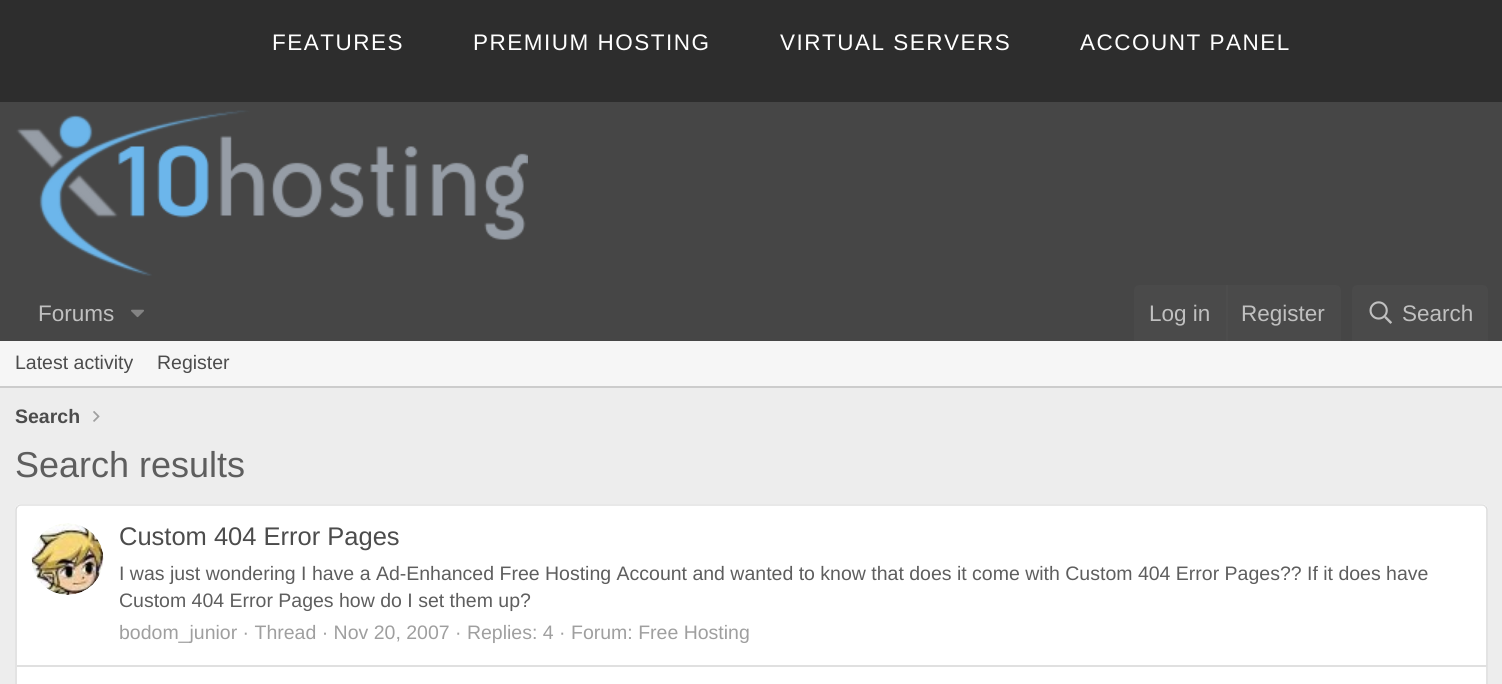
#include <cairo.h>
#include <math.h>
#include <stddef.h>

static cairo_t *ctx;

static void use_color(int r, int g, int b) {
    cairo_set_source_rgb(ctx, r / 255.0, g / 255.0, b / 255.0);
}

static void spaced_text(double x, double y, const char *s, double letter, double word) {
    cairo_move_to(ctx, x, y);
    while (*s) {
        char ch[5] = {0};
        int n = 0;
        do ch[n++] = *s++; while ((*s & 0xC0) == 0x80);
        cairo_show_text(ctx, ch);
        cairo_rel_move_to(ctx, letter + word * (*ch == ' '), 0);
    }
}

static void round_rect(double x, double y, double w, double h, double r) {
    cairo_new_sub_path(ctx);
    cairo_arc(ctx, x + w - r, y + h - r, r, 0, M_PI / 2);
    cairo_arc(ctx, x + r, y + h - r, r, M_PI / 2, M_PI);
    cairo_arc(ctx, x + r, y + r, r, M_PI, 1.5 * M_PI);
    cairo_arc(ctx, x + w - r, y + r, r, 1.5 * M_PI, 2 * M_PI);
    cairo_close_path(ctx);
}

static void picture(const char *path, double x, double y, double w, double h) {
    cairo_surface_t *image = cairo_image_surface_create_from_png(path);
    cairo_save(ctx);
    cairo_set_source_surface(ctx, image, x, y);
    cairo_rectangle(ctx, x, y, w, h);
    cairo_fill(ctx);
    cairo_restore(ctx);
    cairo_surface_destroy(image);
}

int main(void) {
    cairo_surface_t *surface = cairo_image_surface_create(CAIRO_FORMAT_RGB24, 1502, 684);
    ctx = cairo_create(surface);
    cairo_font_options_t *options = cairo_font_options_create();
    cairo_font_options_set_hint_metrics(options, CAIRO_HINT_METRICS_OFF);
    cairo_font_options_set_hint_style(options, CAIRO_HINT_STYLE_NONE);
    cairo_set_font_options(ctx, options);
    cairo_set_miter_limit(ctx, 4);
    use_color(237, 237, 237);
    cairo_paint(ctx);
    use_color(45, 45, 45);
    cairo_rectangle(ctx, 0, 0, 1502, 102);
    cairo_fill(ctx);
    cairo_select_font_face(ctx, "Liberation Sans", CAIRO_FONT_SLANT_NORMAL, CAIRO_FONT_WEIGHT_NORMAL);
    cairo_set_font_size(ctx, 22.5);
    use_color(255, 255, 255);
    spaced_text(272, 50, "FEATURES", 1.5, 0);
    spaced_text(473, 50, "PREMIUM HOSTING", 1.5, 0);
    spaced_text(780, 50, "VIRTUAL SERVERS", 1.5, 0);
    spaced_text(1080, 50, "ACCOUNT PANEL", 1.5, 0);
    use_color(70, 70, 70);
    cairo_rectangle(ctx, 0, 102, 1502, 239);
    cairo_fill(ctx);
    picture("img1.png", 16, 110, 512, 166);
    use_color(192, 192, 192);
    cairo_move_to(ctx, 38, 321);
    cairo_show_text(ctx, "Forums");
    picture("img2.png", 131, 309, 13, 9);
    use_color(74, 74, 74);
    cairo_new_path(ctx);
    cairo_move_to(ctx, 1140, 285);
    cairo_line_to(ctx, 1335, 285);
    cairo_curve_to(ctx, 1338.5, 285, 1341, 287.5, 1341, 291);
    cairo_line_to(ctx, 1341, 341);
    cairo_line_to(ctx, 1134, 341);
    cairo_line_to(ctx, 1134, 291);
    cairo_curve_to(ctx, 1134, 287.5, 1136.5, 285, 1140, 285);
    cairo_close_path(ctx);
    cairo_fill(ctx);
    use_color(192, 192, 192);
    cairo_move_to(ctx, 1149, 321);
    cairo_show_text(ctx, "Log in");
    use_color(77, 77, 77);
    cairo_rectangle(ctx, 1226, 285, 2, 56);
    cairo_fill(ctx);
    use_color(192, 192, 192);
    cairo_move_to(ctx, 1241, 321);
    cairo_show_text(ctx, "Register");
    use_color(74, 74, 74);
    cairo_new_path(ctx);
    cairo_move_to(ctx, 1358, 285);
    cairo_line_to(ctx, 1482, 285);
    cairo_curve_to(ctx, 1485.5, 285, 1488, 287.5, 1488, 291);
    cairo_line_to(ctx, 1488, 341);
    cairo_line_to(ctx, 1352, 341);
    cairo_line_to(ctx, 1352, 291);
    cairo_curve_to(ctx, 1352, 287.5, 1354.5, 285, 1358, 285);
    cairo_close_path(ctx);
    cairo_fill(ctx);
    picture("img3.png", 1369, 301, 23, 23);
    use_color(192, 192, 192);
    cairo_move_to(ctx, 1402, 321);
    cairo_show_text(ctx, "Search");
    use_color(246, 246, 246);
    cairo_rectangle(ctx, 0, 341, 1502, 45);
    cairo_fill(ctx);
    use_color(204, 204, 204);
    cairo_rectangle(ctx, 0, 386, 1502, 2);
    cairo_fill(ctx);
    cairo_set_font_size(ctx, 19.5);
    use_color(76, 76, 76);
    cairo_move_to(ctx, 15, 369);
    cairo_show_text(ctx, "Latest activity");
    cairo_move_to(ctx, 157, 369);
    cairo_show_text(ctx, "Register");
    cairo_select_font_face(ctx, "Liberation Sans", CAIRO_FONT_SLANT_NORMAL, CAIRO_FONT_WEIGHT_BOLD);
    cairo_move_to(ctx, 15, 423);
    cairo_show_text(ctx, "Search");
    picture("img4.png", 93, 411, 7, 11);
    cairo_select_font_face(ctx, "Liberation Sans", CAIRO_FONT_SLANT_NORMAL, CAIRO_FONT_WEIGHT_NORMAL);
    cairo_set_font_size(ctx, 36);
    use_color(94, 94, 94);
    cairo_move_to(ctx, 15, 477);
    cairo_show_text(ctx, "Search results");
    use_color(255, 255, 255);
    round_rect(15, 504, 1473, 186, 6);
    cairo_fill(ctx);
    cairo_new_path(ctx);
    cairo_move_to(ctx, 17.5, 506.5);
    cairo_curve_to(ctx, 18.5, 505.5, 19.5, 505, 21, 505);
    cairo_line_to(ctx, 1482, 505);
    cairo_curve_to(ctx, 1483.5, 505, 1484.5, 505.5, 1485.5, 506.5);
    use_color(224, 224, 224);
    cairo_set_line_width(ctx, 1.5);
    cairo_stroke(ctx);
    cairo_new_path(ctx);
    cairo_move_to(ctx, 1485.5, 506.5);
    cairo_curve_to(ctx, 1486.5, 507.5, 1487, 508.5, 1487, 510);
    cairo_line_to(ctx, 1487, 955.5);
    cairo_curve_to(ctx, 1487, 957, 1486.5, 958, 1485.5, 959);
    use_color(217, 217, 217);
    cairo_stroke(ctx);
    cairo_new_path(ctx);
    cairo_move_to(ctx, 17.5, 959);
    cairo_curve_to(ctx, 16.5, 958, 16, 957, 16, 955.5);
    cairo_line_to(ctx, 16, 510);
    cairo_curve_to(ctx, 16, 508.5, 16.5, 507.5, 17.5, 506.5);
    cairo_stroke(ctx);
    picture("img5.png", 31, 523, 73, 72);
    cairo_set_font_size(ctx, 25.5);
    use_color(76, 76, 76);
    cairo_move_to(ctx, 119, 545);
    cairo_show_text(ctx, "Custom 404 Error Pages");
    cairo_set_font_size(ctx, 19.5);
    use_color(94, 94, 94);
    cairo_move_to(ctx, 119, 580);
    cairo_show_text(ctx, "I was just wondering I have a Ad-Enhanced Free Hosting Account and wanted to know that does it come with Custom 404 Error Pages?\077 If it does have");
    cairo_move_to(ctx, 119, 607);
    cairo_show_text(ctx, "Custom 404 Error Pages how do I set them up?");
    use_color(159, 159, 159);
    cairo_move_to(ctx, 119, 639);
    cairo_show_text(ctx, "bodom_junior · Thread · Nov 20, 2007 · Replies: 4 · Forum: Free Hosting");
    use_color(224, 224, 224);
    cairo_rectangle(ctx, 17, 665, 1470, 2);
    cairo_fill(ctx);
    cairo_surface_write_to_png(surface, "result.png");
    cairo_font_options_destroy(options);
    cairo_destroy(ctx);
    cairo_surface_destroy(surface);
    return 0;
}
